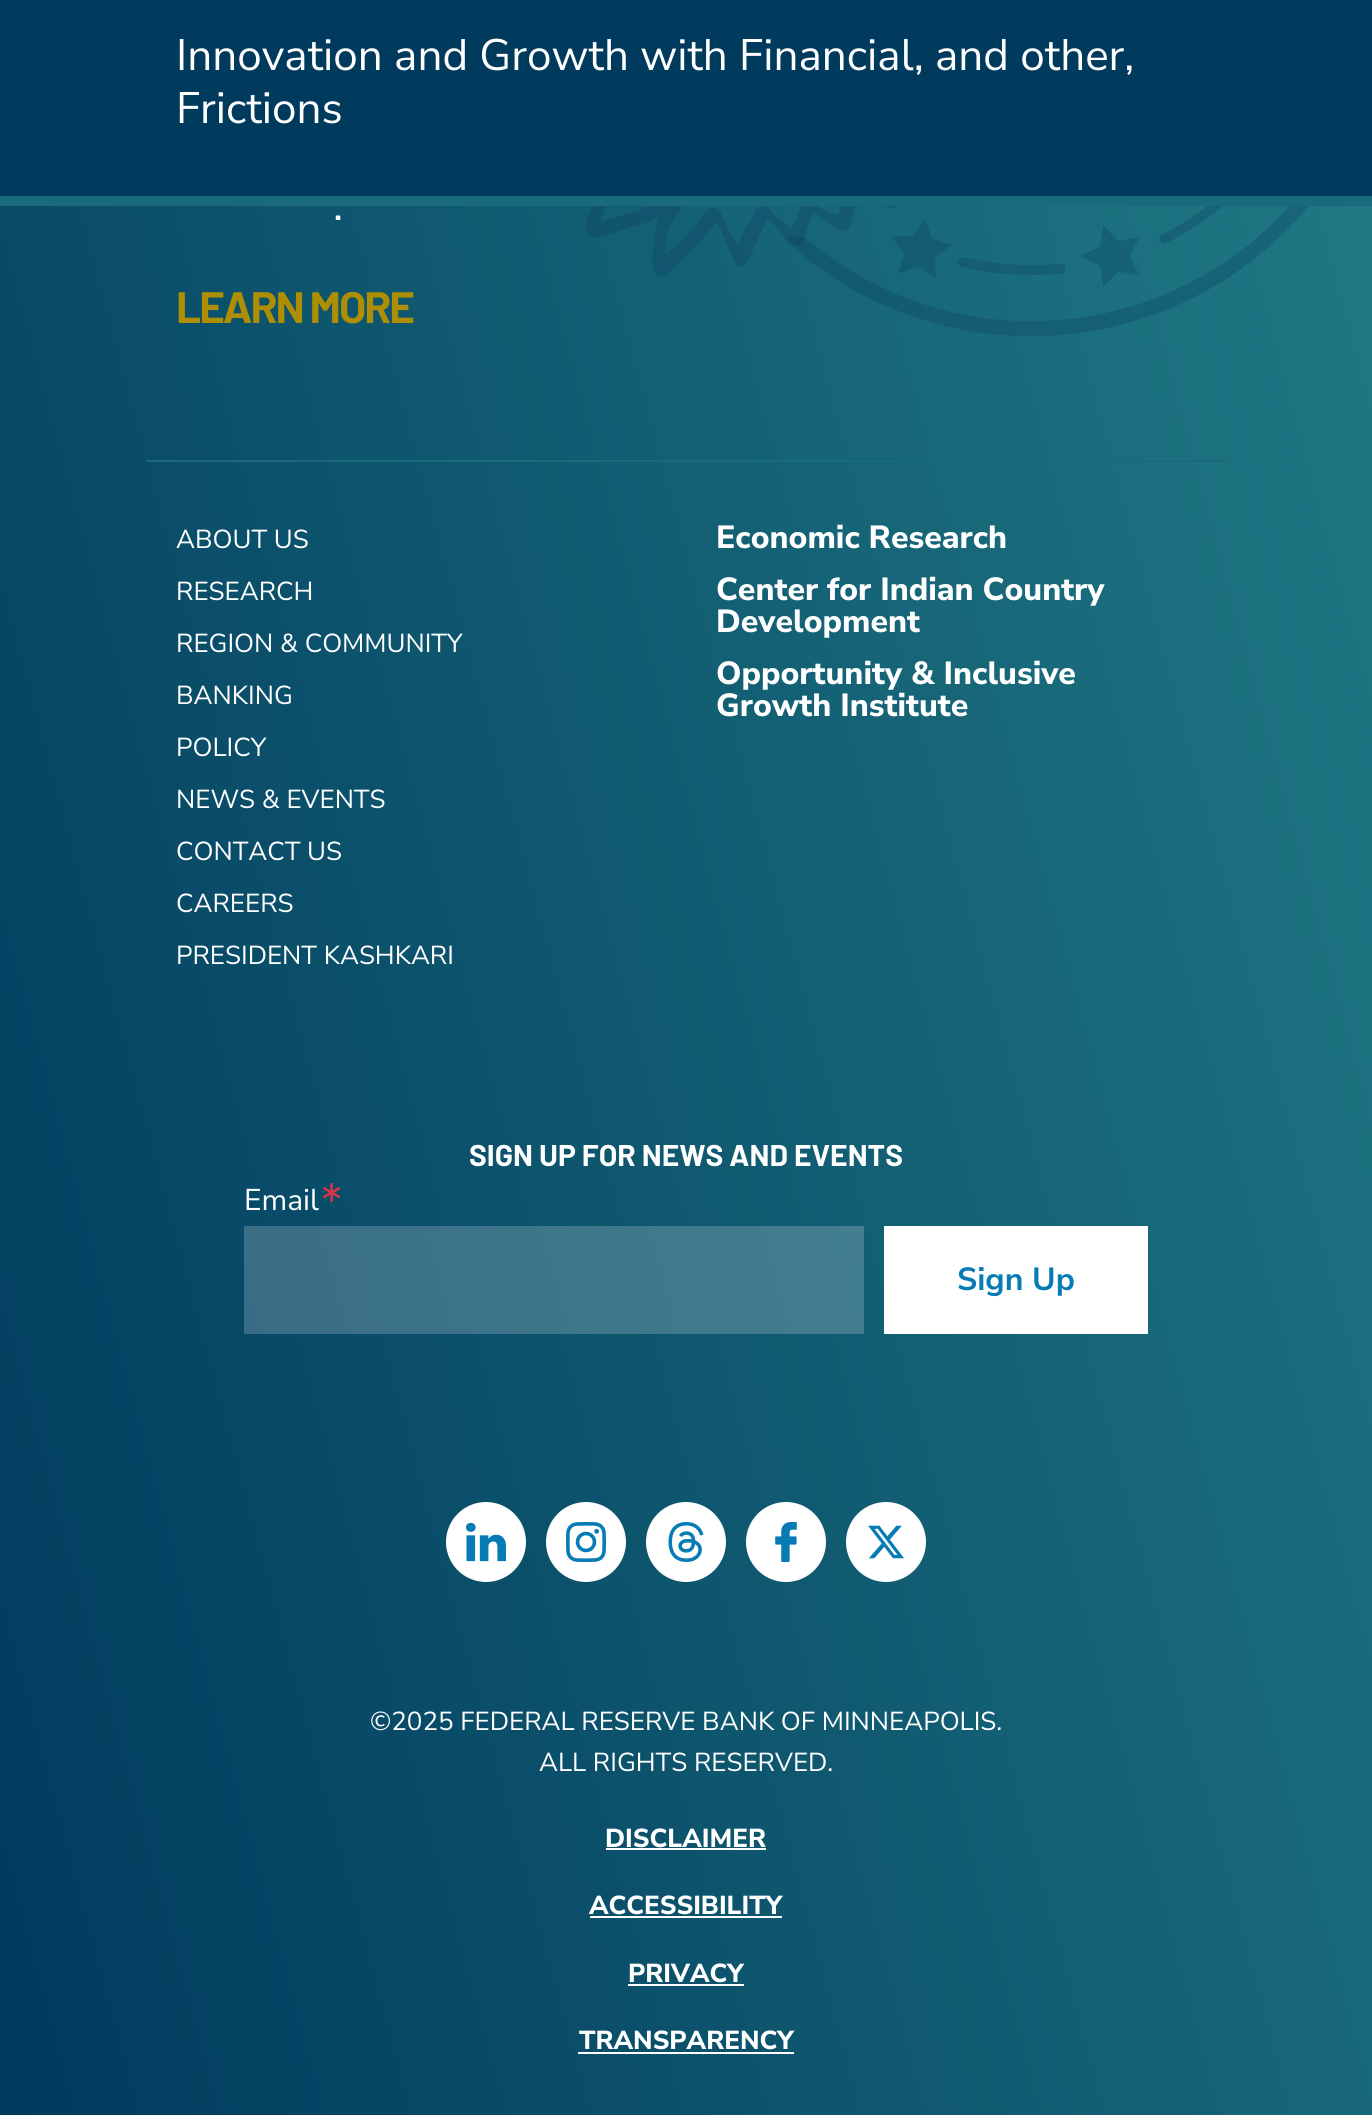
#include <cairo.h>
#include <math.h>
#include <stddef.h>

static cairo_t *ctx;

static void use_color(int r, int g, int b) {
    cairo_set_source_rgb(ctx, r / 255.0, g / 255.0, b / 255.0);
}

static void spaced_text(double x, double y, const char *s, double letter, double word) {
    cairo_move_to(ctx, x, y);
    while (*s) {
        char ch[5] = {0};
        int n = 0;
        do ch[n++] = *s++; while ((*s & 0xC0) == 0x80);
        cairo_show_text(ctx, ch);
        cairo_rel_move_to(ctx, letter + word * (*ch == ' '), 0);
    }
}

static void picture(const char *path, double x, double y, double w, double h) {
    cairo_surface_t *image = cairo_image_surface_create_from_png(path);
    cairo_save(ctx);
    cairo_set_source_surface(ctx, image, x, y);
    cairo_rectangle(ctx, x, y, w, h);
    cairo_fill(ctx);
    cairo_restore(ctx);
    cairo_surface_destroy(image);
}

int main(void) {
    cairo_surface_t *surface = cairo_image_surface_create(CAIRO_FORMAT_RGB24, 1372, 2115);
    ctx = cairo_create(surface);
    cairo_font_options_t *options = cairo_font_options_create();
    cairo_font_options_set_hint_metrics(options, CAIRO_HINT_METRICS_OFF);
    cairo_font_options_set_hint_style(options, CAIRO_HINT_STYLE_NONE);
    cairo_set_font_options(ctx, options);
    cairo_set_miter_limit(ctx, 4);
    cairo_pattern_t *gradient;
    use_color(255, 255, 255);
    cairo_paint(ctx);
    use_color(0, 58, 93);
    cairo_rectangle(ctx, 0, 0, 1372, 196);
    cairo_fill(ctx);
    cairo_select_font_face(ctx, "Nunito Sans", CAIRO_FONT_SLANT_NORMAL, CAIRO_FONT_WEIGHT_NORMAL);
    cairo_set_font_size(ctx, 44);
    use_color(255, 255, 255);
    cairo_move_to(ctx, 176, 70);
    cairo_show_text(ctx, "Innovation and Growth with Financial, and other,");
    cairo_move_to(ctx, 176, 123);
    cairo_show_text(ctx, "Frictions");
    gradient = cairo_pattern_create_linear(0, 201, 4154, 201);
    cairo_pattern_add_color_stop_rgba(gradient, 0, 0.098, 0.42, 0.482, 1);
    cairo_pattern_add_color_stop_rgba(gradient, 0.33, 0.098, 0.42, 0.482, 1);
    cairo_pattern_add_color_stop_rgba(gradient, 1, 0.271, 0.761, 0.694, 1);
    cairo_set_source(ctx, gradient);
    cairo_pattern_destroy(gradient);
    cairo_rectangle(ctx, 0, 196, 1372, 10);
    cairo_fill(ctx);
    gradient = cairo_pattern_create_linear(-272, 1103, 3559, 76);
    cairo_pattern_add_color_stop_rgba(gradient, 0, 0, 0.227, 0.365, 1);
    cairo_pattern_add_color_stop_rgba(gradient, 1, 0.271, 0.761, 0.694, 1);
    cairo_set_source(ctx, gradient);
    cairo_pattern_destroy(gradient);
    cairo_rectangle(ctx, 0, 206, 1372, 1909);
    cairo_fill(ctx);
    gradient = cairo_pattern_create_linear(-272, 1103, 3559, 76);
    cairo_pattern_add_color_stop_rgba(gradient, 0, 0.2, 0.38, 0.49, 1);
    cairo_pattern_add_color_stop_rgba(gradient, 1, 0.416, 0.808, 0.757, 1);
    cairo_set_source(ctx, gradient);
    cairo_pattern_destroy(gradient);
    cairo_rectangle(ctx, 244, 1226, 620, 108);
    cairo_fill(ctx);
    picture("img1.png", 585, 206, 724, 130);
    use_color(25, 107, 123);
    cairo_rectangle(ctx, 146, 460, 1080, 2);
    cairo_fill(ctx);
    use_color(255, 255, 255);
    cairo_move_to(ctx, 333, 220);
    cairo_show_text(ctx, ".");
    cairo_select_font_face(ctx, "Barlow", CAIRO_FONT_SLANT_NORMAL, CAIRO_FONT_WEIGHT_BOLD);
    use_color(174, 142, 3);
    spaced_text(176, 323, "LEARN MORE", -2, 0);
    cairo_select_font_face(ctx, "Nunito Sans", CAIRO_FONT_SLANT_NORMAL, CAIRO_FONT_WEIGHT_NORMAL);
    cairo_set_font_size(ctx, 26);
    use_color(255, 255, 255);
    cairo_move_to(ctx, 176, 548);
    cairo_show_text(ctx, "ABOUT US");
    cairo_move_to(ctx, 176, 600);
    cairo_show_text(ctx, "RESEARCH");
    cairo_move_to(ctx, 176, 652);
    cairo_show_text(ctx, "REGION & COMMUNITY");
    cairo_move_to(ctx, 176, 704);
    cairo_show_text(ctx, "BANKING");
    cairo_move_to(ctx, 176, 756);
    cairo_show_text(ctx, "POLICY");
    cairo_move_to(ctx, 176, 808);
    cairo_show_text(ctx, "NEWS & EVENTS");
    cairo_move_to(ctx, 176, 860);
    cairo_show_text(ctx, "CONTACT US");
    cairo_move_to(ctx, 176, 912);
    cairo_show_text(ctx, "CAREERS");
    cairo_move_to(ctx, 176, 964);
    cairo_show_text(ctx, "PRESIDENT KASHKARI");
    cairo_select_font_face(ctx, "Nunito Sans ExtraBold", CAIRO_FONT_SLANT_NORMAL, CAIRO_FONT_WEIGHT_NORMAL);
    cairo_set_font_size(ctx, 32);
    cairo_move_to(ctx, 716, 548);
    cairo_show_text(ctx, "Economic Research");
    cairo_move_to(ctx, 716, 600);
    cairo_show_text(ctx, "Center for Indian Country");
    cairo_move_to(ctx, 716, 632);
    cairo_show_text(ctx, "Development");
    cairo_move_to(ctx, 716, 684);
    cairo_show_text(ctx, "Opportunity & Inclusive");
    cairo_move_to(ctx, 716, 716);
    cairo_show_text(ctx, "Growth Institute");
    cairo_select_font_face(ctx, "Barlow", CAIRO_FONT_SLANT_NORMAL, CAIRO_FONT_WEIGHT_BOLD);
    cairo_set_font_size(ctx, 30);
    cairo_move_to(ctx, 469, 1166);
    cairo_show_text(ctx, "SIGN UP FOR NEWS AND EVENTS");
    cairo_select_font_face(ctx, "Nunito Sans", CAIRO_FONT_SLANT_NORMAL, CAIRO_FONT_WEIGHT_NORMAL);
    cairo_move_to(ctx, 244, 1210);
    cairo_show_text(ctx, "Email");
    cairo_select_font_face(ctx, "DejaVu Sans", CAIRO_FONT_SLANT_NORMAL, CAIRO_FONT_WEIGHT_NORMAL);
    use_color(220, 53, 69);
    cairo_move_to(ctx, 319, 1202);
    cairo_show_text(ctx, "∗");
    use_color(255, 255, 255);
    cairo_rectangle(ctx, 884, 1226, 264, 108);
    cairo_fill(ctx);
    cairo_select_font_face(ctx, "Nunito Sans", CAIRO_FONT_SLANT_NORMAL, CAIRO_FONT_WEIGHT_BOLD);
    cairo_set_font_size(ctx, 32);
    use_color(6, 123, 180);
    cairo_move_to(ctx, 957, 1290);
    cairo_show_text(ctx, "Sign Up");
    use_color(255, 255, 255);
    cairo_new_path(ctx);
    cairo_arc(ctx, 486, 1542, 40, 0, 2 * M_PI);
    cairo_fill(ctx);
    picture("img2.png", 466, 1522, 40, 40);
    cairo_arc(ctx, 586, 1542, 40, 0, 2 * M_PI);
    cairo_fill(ctx);
    picture("img3.png", 566, 1522, 40, 40);
    cairo_arc(ctx, 686, 1542, 40, 0, 2 * M_PI);
    cairo_fill(ctx);
    picture("img4.png", 668, 1522, 36, 40);
    cairo_arc(ctx, 786, 1542, 40, 0, 2 * M_PI);
    cairo_fill(ctx);
    picture("img5.png", 775, 1522, 22, 40);
    cairo_arc(ctx, 886, 1542, 40, 0, 2 * M_PI);
    cairo_fill(ctx);
    picture("img6.png", 868, 1525, 36, 34);
    cairo_select_font_face(ctx, "Nunito Sans", CAIRO_FONT_SLANT_NORMAL, CAIRO_FONT_WEIGHT_NORMAL);
    cairo_set_font_size(ctx, 26);
    cairo_move_to(ctx, 370, 1730);
    cairo_show_text(ctx, "©2025 FEDERAL RESERVE BANK OF MINNEAPOLIS.");
    cairo_move_to(ctx, 539, 1771);
    cairo_show_text(ctx, "ALL RIGHTS RESERVED.");
    cairo_select_font_face(ctx, "Nunito Sans ExtraBold", CAIRO_FONT_SLANT_NORMAL, CAIRO_FONT_WEIGHT_NORMAL);
    cairo_move_to(ctx, 605, 1847);
    cairo_show_text(ctx, "DISCLAIMER");
    cairo_rectangle(ctx, 606, 1848, 160, 2);
    cairo_fill(ctx);
    cairo_move_to(ctx, 589, 1914);
    cairo_show_text(ctx, "ACCESSIBILITY");
    cairo_rectangle(ctx, 590, 1916, 192, 2);
    cairo_fill(ctx);
    cairo_move_to(ctx, 628, 1982);
    cairo_show_text(ctx, "PRIVACY");
    cairo_rectangle(ctx, 628, 1984, 116, 2);
    cairo_fill(ctx);
    cairo_move_to(ctx, 579, 2049);
    cairo_show_text(ctx, "TRANSPARENCY");
    cairo_rectangle(ctx, 578, 2052, 216, 2);
    cairo_fill(ctx);
    cairo_surface_write_to_png(surface, "result.png");
    cairo_font_options_destroy(options);
    cairo_destroy(ctx);
    cairo_surface_destroy(surface);
    return 0;
}
